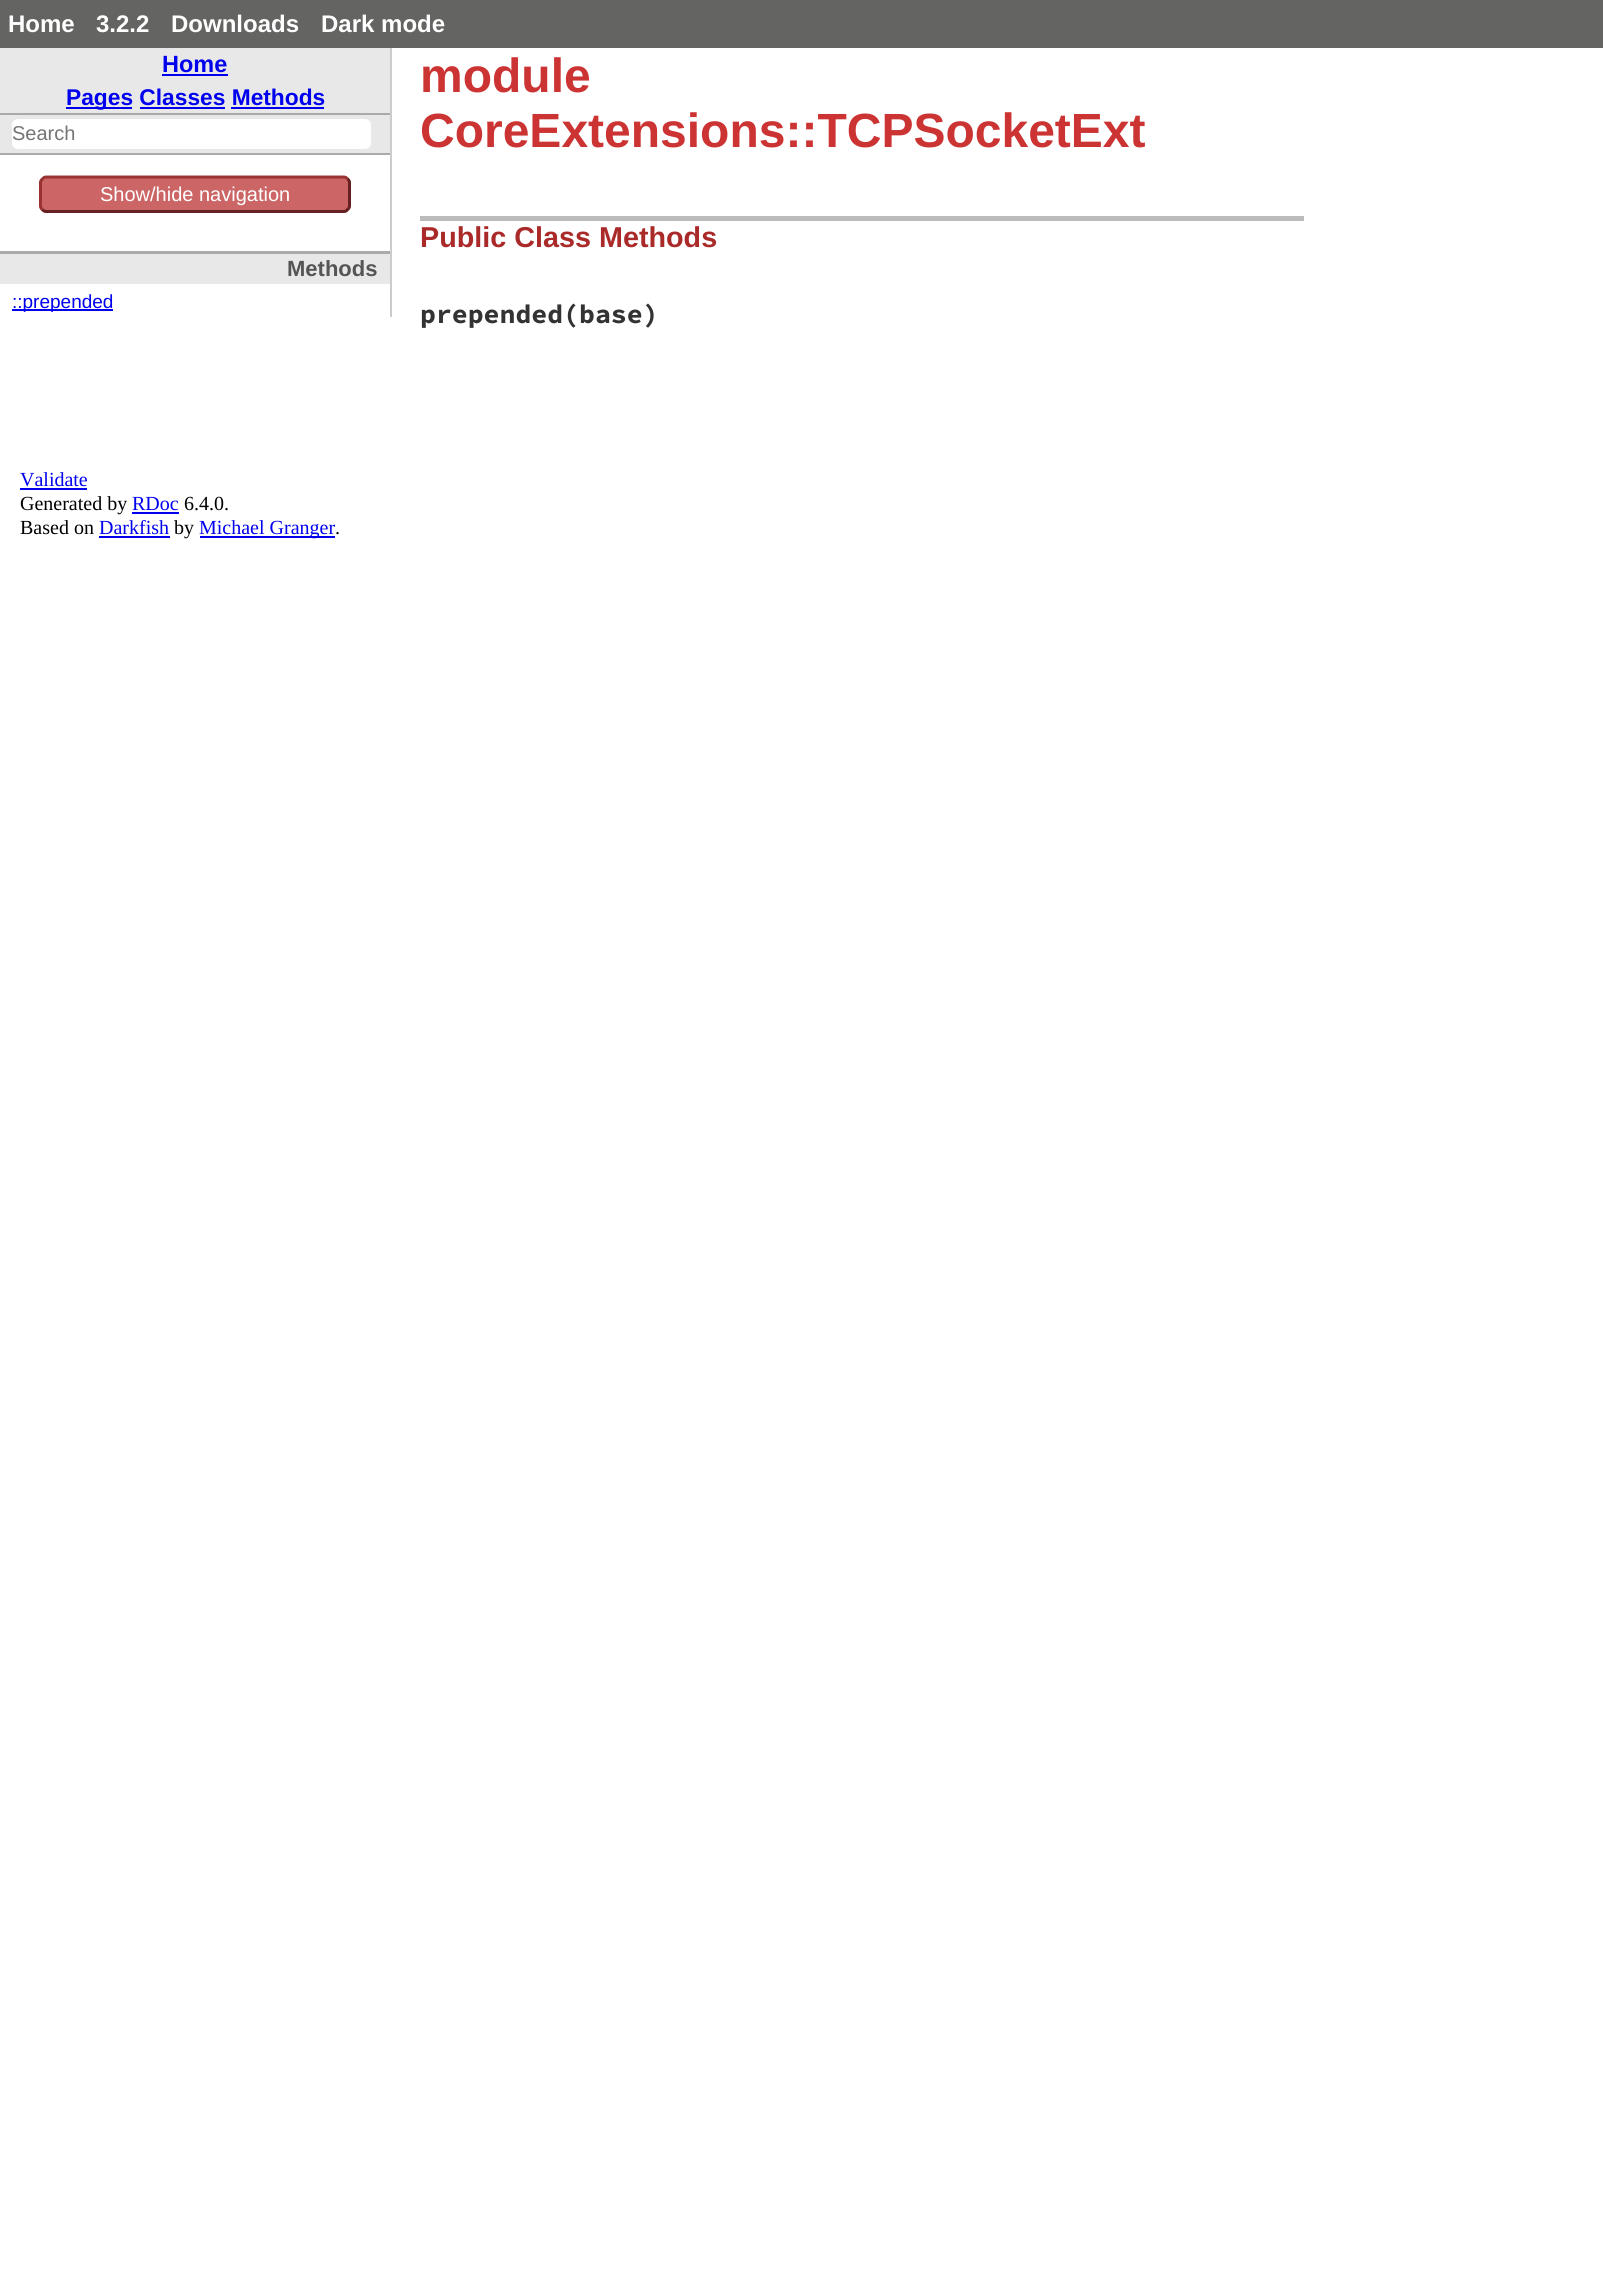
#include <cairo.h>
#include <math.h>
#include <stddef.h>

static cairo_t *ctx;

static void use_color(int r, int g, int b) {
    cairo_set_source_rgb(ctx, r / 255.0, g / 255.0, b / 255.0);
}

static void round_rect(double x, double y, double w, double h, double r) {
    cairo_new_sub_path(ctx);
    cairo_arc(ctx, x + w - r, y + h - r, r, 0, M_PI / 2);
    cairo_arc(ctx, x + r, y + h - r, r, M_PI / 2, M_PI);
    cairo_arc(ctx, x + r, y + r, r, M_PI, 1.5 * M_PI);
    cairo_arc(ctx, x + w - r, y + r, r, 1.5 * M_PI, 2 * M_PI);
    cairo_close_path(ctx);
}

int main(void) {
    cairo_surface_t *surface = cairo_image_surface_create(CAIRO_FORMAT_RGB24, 1603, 2271);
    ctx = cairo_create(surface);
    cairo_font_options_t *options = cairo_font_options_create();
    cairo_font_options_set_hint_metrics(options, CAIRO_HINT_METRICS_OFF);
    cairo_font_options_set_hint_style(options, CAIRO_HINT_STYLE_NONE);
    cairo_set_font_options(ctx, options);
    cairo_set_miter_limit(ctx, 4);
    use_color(255, 255, 255);
    cairo_paint(ctx);
    use_color(100, 100, 98);
    cairo_rectangle(ctx, 0, 0, 1603, 48);
    cairo_fill(ctx);
    cairo_select_font_face(ctx, "Liberation Sans", CAIRO_FONT_SLANT_NORMAL, CAIRO_FONT_WEIGHT_BOLD);
    cairo_set_font_size(ctx, 24);
    use_color(255, 255, 255);
    cairo_move_to(ctx, 8, 32);
    cairo_show_text(ctx, "Home");
    cairo_move_to(ctx, 96, 32);
    cairo_show_text(ctx, "3.2.2");
    cairo_move_to(ctx, 171, 32);
    cairo_show_text(ctx, "Downloads");
    cairo_move_to(ctx, 321, 32);
    cairo_show_text(ctx, "Dark mode");
    use_color(204, 204, 204);
    cairo_rectangle(ctx, 390, 48, 2, 269);
    cairo_fill(ctx);
    use_color(232, 232, 232);
    cairo_rectangle(ctx, 0, 48, 390, 65);
    cairo_fill(ctx);
    cairo_set_font_size(ctx, 23.5);
    use_color(0, 0, 238);
    cairo_move_to(ctx, 162, 72);
    cairo_show_text(ctx, "Home");
    cairo_rectangle(ctx, 162, 74, 66, 2);
    cairo_fill(ctx);
    cairo_rectangle(ctx, 66, 107, 66, 2);
    cairo_fill(ctx);
    cairo_set_font_size(ctx, 22.75);
    cairo_move_to(ctx, 66, 105);
    cairo_show_text(ctx, "Pages Classes Methods");
    cairo_rectangle(ctx, 140, 107, 85, 2);
    cairo_fill(ctx);
    cairo_rectangle(ctx, 231, 107, 93, 2);
    cairo_fill(ctx);
    use_color(232, 232, 232);
    cairo_rectangle(ctx, 0, 115, 390, 38);
    cairo_fill(ctx);
    use_color(170, 170, 170);
    cairo_rectangle(ctx, 0, 113, 390, 2);
    cairo_fill(ctx);
    cairo_rectangle(ctx, 0, 153, 390, 2);
    cairo_fill(ctx);
    use_color(255, 255, 255);
    round_rect(12, 119, 359, 30, 6);
    cairo_fill(ctx);
    cairo_select_font_face(ctx, "Liberation Sans", CAIRO_FONT_SLANT_NORMAL, CAIRO_FONT_WEIGHT_NORMAL);
    cairo_set_font_size(ctx, 20);
    use_color(117, 117, 117);
    cairo_move_to(ctx, 12, 140);
    cairo_show_text(ctx, "Search");
    use_color(204, 102, 102);
    round_rect(39, 176, 312, 37, 8);
    cairo_fill(ctx);
    cairo_new_path(ctx);
    cairo_move_to(ctx, 347.5, 179);
    cairo_curve_to(ctx, 349, 180, 349.5, 181.5, 349.5, 183);
    cairo_line_to(ctx, 349.5, 205.5);
    cairo_curve_to(ctx, 349.5, 207, 349, 208.5, 347.5, 209.5);
    cairo_curve_to(ctx, 346.5, 211, 345, 211.5, 343.5, 211.5);
    cairo_line_to(ctx, 46.5, 211.5);
    cairo_curve_to(ctx, 45, 211.5, 43.5, 211, 42.5, 209.5);
    use_color(102, 34, 34);
    cairo_set_line_width(ctx, 3);
    cairo_stroke(ctx);
    cairo_new_path(ctx);
    cairo_move_to(ctx, 42.5, 209.5);
    cairo_curve_to(ctx, 41, 208.5, 40.5, 207, 40.5, 205.5);
    cairo_line_to(ctx, 40.5, 183);
    cairo_curve_to(ctx, 40.5, 181.5, 41, 180, 42.5, 179);
    cairo_curve_to(ctx, 43.5, 177.5, 45, 177, 46.5, 177);
    cairo_line_to(ctx, 343.5, 177);
    cairo_curve_to(ctx, 345, 177, 346.5, 177.5, 347.5, 179);
    use_color(153, 51, 51);
    cairo_stroke(ctx);
    use_color(255, 255, 255);
    cairo_move_to(ctx, 100, 201);
    cairo_show_text(ctx, "Show/hide navigation");
    use_color(170, 170, 170);
    cairo_rectangle(ctx, 0, 251, 390, 3);
    cairo_fill(ctx);
    use_color(232, 232, 232);
    cairo_rectangle(ctx, 0, 254, 390, 30);
    cairo_fill(ctx);
    cairo_select_font_face(ctx, "Liberation Sans", CAIRO_FONT_SLANT_NORMAL, CAIRO_FONT_WEIGHT_BOLD);
    cairo_set_font_size(ctx, 22);
    use_color(85, 85, 85);
    cairo_move_to(ctx, 287, 276);
    cairo_show_text(ctx, "Methods");
    use_color(0, 0, 238);
    cairo_rectangle(ctx, 12, 309, 101, 2);
    cairo_fill(ctx);
    cairo_select_font_face(ctx, "Liberation Sans", CAIRO_FONT_SLANT_NORMAL, CAIRO_FONT_WEIGHT_NORMAL);
    cairo_set_font_size(ctx, 19);
    cairo_move_to(ctx, 12, 308);
    cairo_show_text(ctx, "::prepended");
    cairo_select_font_face(ctx, "Liberation Sans", CAIRO_FONT_SLANT_NORMAL, CAIRO_FONT_WEIGHT_BOLD);
    cairo_set_font_size(ctx, 48);
    use_color(204, 51, 51);
    cairo_move_to(ctx, 420, 92);
    cairo_show_text(ctx, "module");
    cairo_move_to(ctx, 420, 147);
    cairo_show_text(ctx, "CoreExtensions::TCPSocketExt");
    use_color(187, 187, 187);
    cairo_rectangle(ctx, 420, 216, 884, 5);
    cairo_fill(ctx);
    cairo_set_font_size(ctx, 28.75);
    use_color(170, 41, 41);
    cairo_move_to(ctx, 420, 247);
    cairo_show_text(ctx, "Public Class Methods");
    cairo_select_font_face(ctx, "Source Code Pro", CAIRO_FONT_SLANT_NORMAL, CAIRO_FONT_WEIGHT_BOLD);
    cairo_set_font_size(ctx, 26.5);
    use_color(51, 51, 51);
    cairo_move_to(ctx, 420, 323);
    cairo_show_text(ctx, "prepended(base)");
    cairo_select_font_face(ctx, "Liberation Serif", CAIRO_FONT_SLANT_NORMAL, CAIRO_FONT_WEIGHT_NORMAL);
    cairo_set_font_size(ctx, 20);
    use_color(0, 0, 238);
    cairo_move_to(ctx, 20, 486);
    cairo_show_text(ctx, "Validate");
    cairo_rectangle(ctx, 20, 488, 67, 2);
    cairo_fill(ctx);
    use_color(0, 0, 0);
    cairo_move_to(ctx, 20, 510);
    cairo_show_text(ctx, "Generated by");
    use_color(0, 0, 238);
    cairo_move_to(ctx, 132, 510);
    cairo_show_text(ctx, "RDoc");
    cairo_rectangle(ctx, 132, 512, 47, 2);
    cairo_fill(ctx);
    use_color(0, 0, 0);
    cairo_move_to(ctx, 184, 510);
    cairo_show_text(ctx, "6.4.0.");
    cairo_move_to(ctx, 20, 534);
    cairo_show_text(ctx, "Based on");
    use_color(0, 0, 238);
    cairo_move_to(ctx, 99, 534);
    cairo_show_text(ctx, "Darkfish");
    cairo_rectangle(ctx, 99, 536, 71, 2);
    cairo_fill(ctx);
    use_color(0, 0, 0);
    cairo_move_to(ctx, 174, 534);
    cairo_show_text(ctx, "by");
    use_color(0, 0, 238);
    cairo_rectangle(ctx, 200, 536, 135, 2);
    cairo_fill(ctx);
    cairo_move_to(ctx, 199, 534);
    cairo_show_text(ctx, "Michael Granger");
    use_color(0, 0, 0);
    cairo_move_to(ctx, 335, 534);
    cairo_show_text(ctx, ".");
    cairo_surface_write_to_png(surface, "result.png");
    cairo_font_options_destroy(options);
    cairo_destroy(ctx);
    cairo_surface_destroy(surface);
    return 0;
}
